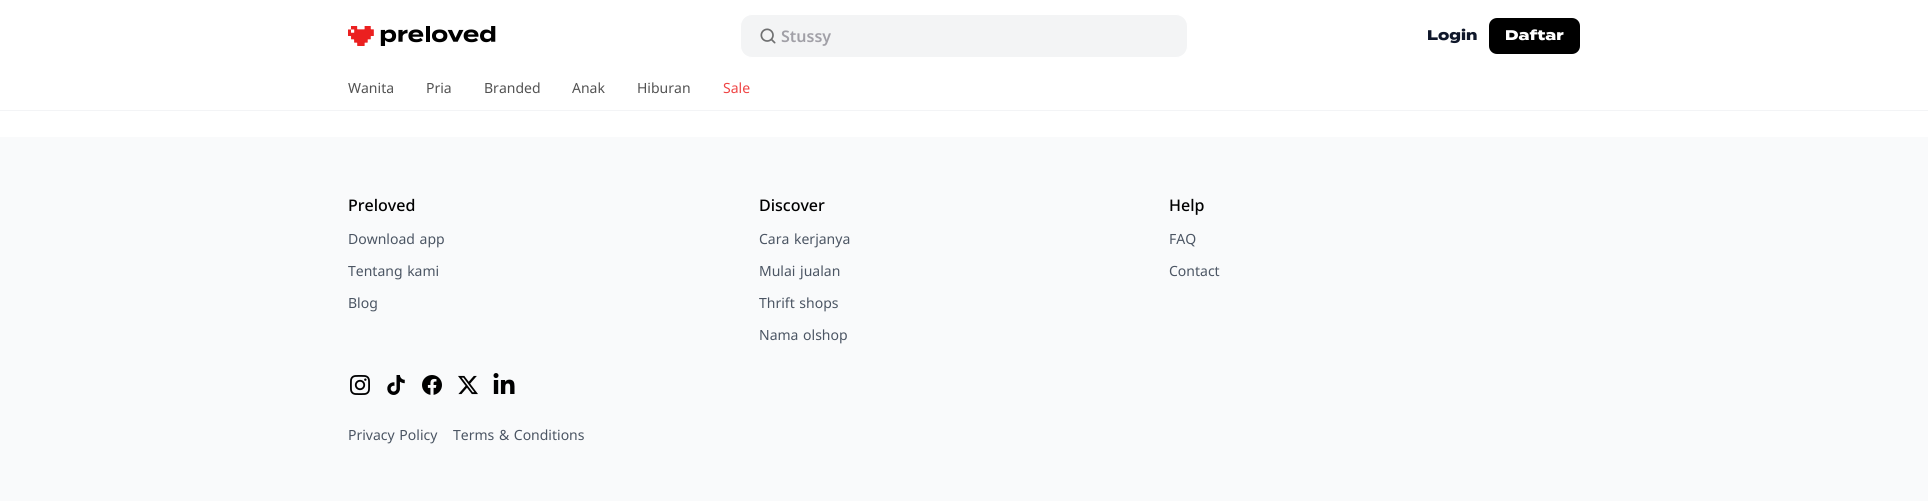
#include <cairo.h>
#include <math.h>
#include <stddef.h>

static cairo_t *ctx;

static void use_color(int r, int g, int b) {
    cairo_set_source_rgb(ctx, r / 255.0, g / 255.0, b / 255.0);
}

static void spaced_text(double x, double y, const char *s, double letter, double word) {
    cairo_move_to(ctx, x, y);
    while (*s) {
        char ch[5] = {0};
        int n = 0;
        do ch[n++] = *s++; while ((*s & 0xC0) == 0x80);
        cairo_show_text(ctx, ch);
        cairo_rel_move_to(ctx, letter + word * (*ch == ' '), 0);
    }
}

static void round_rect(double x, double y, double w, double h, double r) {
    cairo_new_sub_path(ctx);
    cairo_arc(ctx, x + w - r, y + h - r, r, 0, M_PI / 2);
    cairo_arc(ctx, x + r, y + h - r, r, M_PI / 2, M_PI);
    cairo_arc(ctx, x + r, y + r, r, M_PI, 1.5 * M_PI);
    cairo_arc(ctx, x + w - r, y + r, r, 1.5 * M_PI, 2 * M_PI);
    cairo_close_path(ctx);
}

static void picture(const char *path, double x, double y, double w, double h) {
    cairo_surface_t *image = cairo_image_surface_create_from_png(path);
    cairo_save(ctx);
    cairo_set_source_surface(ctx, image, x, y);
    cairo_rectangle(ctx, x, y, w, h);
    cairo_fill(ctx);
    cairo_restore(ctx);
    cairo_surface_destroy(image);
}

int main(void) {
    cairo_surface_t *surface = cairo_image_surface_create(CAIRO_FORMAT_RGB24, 1928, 501);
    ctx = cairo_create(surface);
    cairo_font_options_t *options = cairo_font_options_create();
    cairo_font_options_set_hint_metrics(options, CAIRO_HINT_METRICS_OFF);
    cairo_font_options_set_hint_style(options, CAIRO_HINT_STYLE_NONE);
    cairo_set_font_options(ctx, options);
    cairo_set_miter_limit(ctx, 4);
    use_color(255, 255, 255);
    cairo_paint(ctx);
    use_color(243, 244, 246);
    cairo_rectangle(ctx, 0, 110, 1928, 1);
    cairo_fill(ctx);
    picture("img1.png", 348, 26, 148, 20);
    use_color(243, 244, 245);
    round_rect(740.5, 14.5, 447, 43, 11.5);
    cairo_fill_preserve(ctx);
    use_color(255, 255, 255);
    cairo_set_line_width(ctx, 1);
    cairo_stroke(ctx);
    picture("img2.png", 760, 28, 16, 16);
    cairo_select_font_face(ctx, "Noto Sans SemiBold", CAIRO_FONT_SLANT_NORMAL, CAIRO_FONT_WEIGHT_NORMAL);
    cairo_set_font_size(ctx, 16);
    use_color(161, 160, 167);
    cairo_move_to(ctx, 781, 42);
    cairo_show_text(ctx, "Stussy");
    cairo_select_font_face(ctx, "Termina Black", CAIRO_FONT_SLANT_NORMAL, CAIRO_FONT_WEIGHT_NORMAL);
    cairo_set_font_size(ctx, 14);
    use_color(15, 23, 42);
    cairo_move_to(ctx, 1427, 40);
    cairo_show_text(ctx, "Login");
    use_color(0, 0, 0);
    round_rect(1489, 18, 91, 36, 8);
    cairo_fill(ctx);
    use_color(255, 255, 255);
    cairo_move_to(ctx, 1505, 40);
    cairo_show_text(ctx, "Daftar");
    cairo_select_font_face(ctx, "Noto Sans", CAIRO_FONT_SLANT_NORMAL, CAIRO_FONT_WEIGHT_NORMAL);
    use_color(82, 82, 82);
    cairo_move_to(ctx, 348, 93);
    cairo_show_text(ctx, "Wanita");
    cairo_move_to(ctx, 426, 93);
    cairo_show_text(ctx, "Pria");
    cairo_move_to(ctx, 484, 93);
    cairo_show_text(ctx, "Branded");
    cairo_move_to(ctx, 572, 93);
    cairo_show_text(ctx, "Anak");
    cairo_move_to(ctx, 637, 93);
    cairo_show_text(ctx, "Hiburan");
    use_color(239, 68, 68);
    cairo_move_to(ctx, 723, 93);
    cairo_show_text(ctx, "Sale");
    use_color(249, 250, 251);
    cairo_rectangle(ctx, 0, 137, 1928, 364);
    cairo_fill(ctx);
    cairo_select_font_face(ctx, "Noto Sans Medium", CAIRO_FONT_SLANT_NORMAL, CAIRO_FONT_WEIGHT_NORMAL);
    cairo_set_font_size(ctx, 16);
    use_color(0, 0, 0);
    cairo_move_to(ctx, 348, 211);
    cairo_show_text(ctx, "Preloved");
    cairo_select_font_face(ctx, "Noto Sans", CAIRO_FONT_SLANT_NORMAL, CAIRO_FONT_WEIGHT_NORMAL);
    cairo_set_font_size(ctx, 14);
    use_color(75, 85, 99);
    spaced_text(348, 244, "Download app", 0, 1);
    spaced_text(348, 276, "Tentang kami", 0, 1);
    cairo_move_to(ctx, 348, 308);
    cairo_show_text(ctx, "Blog");
    cairo_select_font_face(ctx, "Noto Sans Medium", CAIRO_FONT_SLANT_NORMAL, CAIRO_FONT_WEIGHT_NORMAL);
    cairo_set_font_size(ctx, 16);
    use_color(0, 0, 0);
    cairo_move_to(ctx, 759, 211);
    cairo_show_text(ctx, "Discover");
    cairo_select_font_face(ctx, "Noto Sans", CAIRO_FONT_SLANT_NORMAL, CAIRO_FONT_WEIGHT_NORMAL);
    cairo_set_font_size(ctx, 14);
    use_color(75, 85, 99);
    spaced_text(759, 244, "Cara kerjanya", 0, 1);
    spaced_text(759, 276, "Mulai jualan", 0, 1);
    spaced_text(759, 308, "Thrift shops", 0, 1);
    spaced_text(759, 340, "Nama olshop", 0, 1);
    cairo_select_font_face(ctx, "Noto Sans Medium", CAIRO_FONT_SLANT_NORMAL, CAIRO_FONT_WEIGHT_NORMAL);
    cairo_set_font_size(ctx, 16);
    use_color(0, 0, 0);
    cairo_move_to(ctx, 1169, 211);
    cairo_show_text(ctx, "Help");
    cairo_select_font_face(ctx, "Noto Sans", CAIRO_FONT_SLANT_NORMAL, CAIRO_FONT_WEIGHT_NORMAL);
    cairo_set_font_size(ctx, 14);
    use_color(75, 85, 99);
    cairo_move_to(ctx, 1169, 244);
    cairo_show_text(ctx, "FAQ");
    cairo_move_to(ctx, 1169, 276);
    cairo_show_text(ctx, "Contact");
    picture("img3.png", 350, 375, 20, 20);
    picture("img4.png", 387, 375, 18, 20);
    picture("img5.png", 422, 375, 20, 20);
    picture("img6.png", 458, 375, 20, 20);
    picture("img7.png", 493, 373, 22, 21);
    spaced_text(348, 440, "Privacy Policy", 0, 1);
    spaced_text(453, 440, "Terms & Conditions", 0, 1);
    cairo_surface_write_to_png(surface, "result.png");
    cairo_font_options_destroy(options);
    cairo_destroy(ctx);
    cairo_surface_destroy(surface);
    return 0;
}
